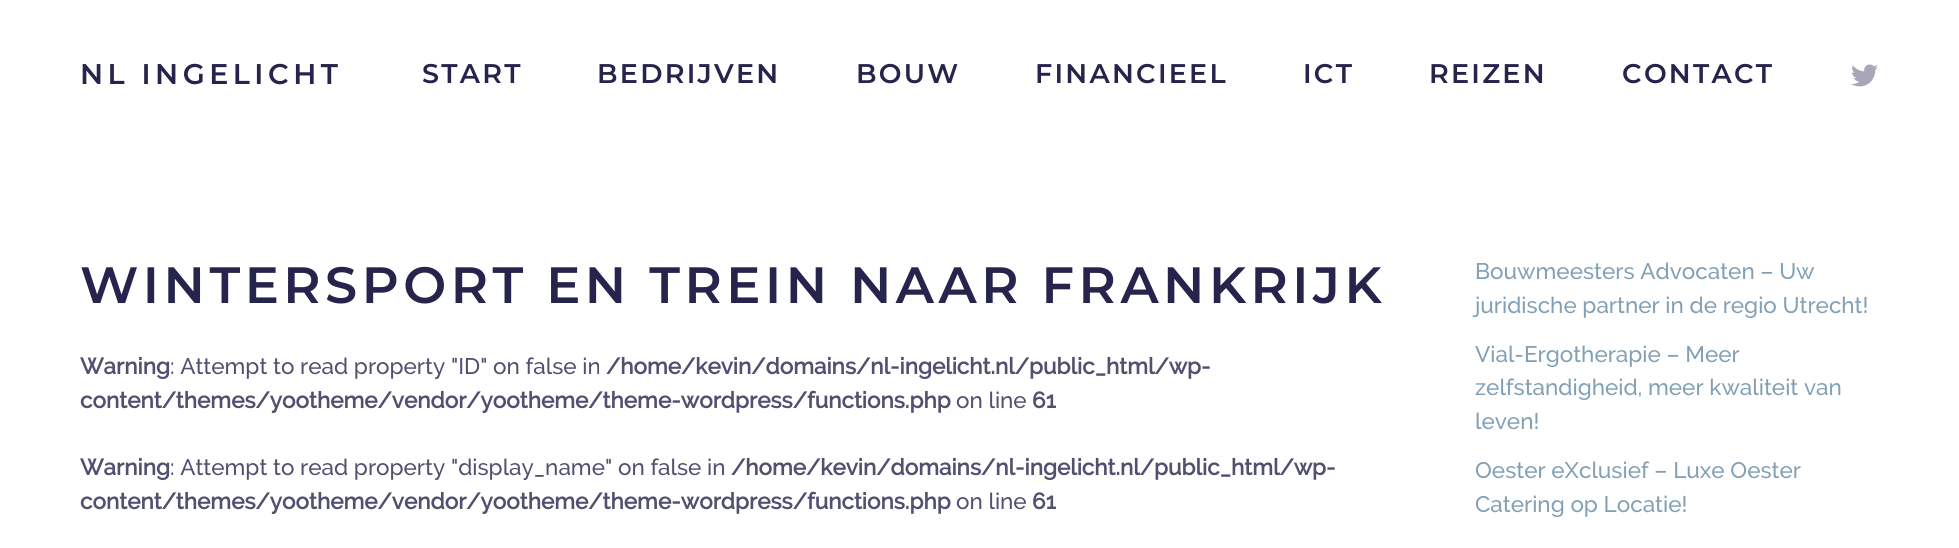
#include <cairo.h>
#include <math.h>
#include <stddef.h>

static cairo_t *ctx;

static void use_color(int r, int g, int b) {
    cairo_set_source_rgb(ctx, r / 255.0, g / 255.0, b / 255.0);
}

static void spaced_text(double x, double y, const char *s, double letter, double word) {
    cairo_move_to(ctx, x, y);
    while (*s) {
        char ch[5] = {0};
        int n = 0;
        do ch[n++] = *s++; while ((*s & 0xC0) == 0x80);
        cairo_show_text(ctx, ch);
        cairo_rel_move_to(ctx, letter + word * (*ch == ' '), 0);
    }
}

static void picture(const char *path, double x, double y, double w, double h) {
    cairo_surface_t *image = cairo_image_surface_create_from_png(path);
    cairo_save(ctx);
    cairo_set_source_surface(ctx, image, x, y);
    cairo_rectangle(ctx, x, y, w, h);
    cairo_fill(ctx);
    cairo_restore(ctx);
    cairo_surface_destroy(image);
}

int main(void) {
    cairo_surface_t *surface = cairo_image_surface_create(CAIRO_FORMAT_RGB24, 1959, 548);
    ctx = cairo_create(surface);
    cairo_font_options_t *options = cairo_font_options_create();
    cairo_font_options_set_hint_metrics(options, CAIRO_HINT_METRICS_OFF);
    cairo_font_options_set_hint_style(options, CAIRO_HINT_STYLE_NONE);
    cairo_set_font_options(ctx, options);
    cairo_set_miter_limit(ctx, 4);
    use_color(255, 255, 255);
    cairo_paint(ctx);
    cairo_select_font_face(ctx, "Montserrat SemiBold", CAIRO_FONT_SLANT_NORMAL, CAIRO_FONT_WEIGHT_NORMAL);
    cairo_set_font_size(ctx, 28.5);
    use_color(38, 36, 76);
    spaced_text(80, 84, "NL INGELICHT", 4.5, 0);
    cairo_set_font_size(ctx, 27);
    spaced_text(422, 83, "START", 2.25, 0);
    spaced_text(597, 83, "BEDRIJVEN", 2.25, 0);
    spaced_text(856, 83, "BOUW", 2.25, 0);
    spaced_text(1035, 83, "FINANCIEEL", 2.25, 0);
    spaced_text(1303, 83, "ICT", 2.25, 0);
    spaced_text(1429, 83, "REIZEN", 2.25, 0);
    spaced_text(1622, 83, "CONTACT", 2.25, 0);
    picture("img1.png", 1851, 64, 27, 23);
    cairo_set_font_size(ctx, 51);
    spaced_text(80, 303, "WINTERSPORT EN TREIN NAAR FRANKRIJK", 4.5, 0);
    cairo_select_font_face(ctx, "Raleway", CAIRO_FONT_SLANT_NORMAL, CAIRO_FONT_WEIGHT_BOLD);
    cairo_set_font_size(ctx, 22.5);
    use_color(81, 80, 112);
    cairo_move_to(ctx, 80, 374);
    cairo_show_text(ctx, "Warning");
    cairo_select_font_face(ctx, "Raleway Medium", CAIRO_FONT_SLANT_NORMAL, CAIRO_FONT_WEIGHT_NORMAL);
    cairo_move_to(ctx, 170, 374);
    cairo_show_text(ctx, ": Attempt to read property \"ID\" on false in");
    cairo_select_font_face(ctx, "Raleway", CAIRO_FONT_SLANT_NORMAL, CAIRO_FONT_WEIGHT_BOLD);
    cairo_move_to(ctx, 606, 374);
    cairo_show_text(ctx, "/home/kevin/domains/nl-ingelicht.nl/public_html/wp-");
    cairo_move_to(ctx, 80, 408);
    cairo_show_text(ctx, "content/themes/yootheme/vendor/yootheme/theme-wordpress/functions.php");
    cairo_select_font_face(ctx, "Raleway Medium", CAIRO_FONT_SLANT_NORMAL, CAIRO_FONT_WEIGHT_NORMAL);
    cairo_move_to(ctx, 956, 408);
    cairo_show_text(ctx, "on line");
    cairo_select_font_face(ctx, "Raleway", CAIRO_FONT_SLANT_NORMAL, CAIRO_FONT_WEIGHT_BOLD);
    cairo_move_to(ctx, 1032, 408);
    cairo_show_text(ctx, "61");
    cairo_move_to(ctx, 80, 475);
    cairo_show_text(ctx, "Warning");
    cairo_select_font_face(ctx, "Raleway Medium", CAIRO_FONT_SLANT_NORMAL, CAIRO_FONT_WEIGHT_NORMAL);
    cairo_move_to(ctx, 170, 475);
    cairo_show_text(ctx, ": Attempt to read property \"display_name\" on false in");
    cairo_select_font_face(ctx, "Raleway", CAIRO_FONT_SLANT_NORMAL, CAIRO_FONT_WEIGHT_BOLD);
    cairo_move_to(ctx, 731, 475);
    cairo_show_text(ctx, "/home/kevin/domains/nl-ingelicht.nl/public_html/wp-");
    cairo_move_to(ctx, 80, 509);
    cairo_show_text(ctx, "content/themes/yootheme/vendor/yootheme/theme-wordpress/functions.php");
    cairo_select_font_face(ctx, "Raleway Medium", CAIRO_FONT_SLANT_NORMAL, CAIRO_FONT_WEIGHT_NORMAL);
    cairo_move_to(ctx, 956, 509);
    cairo_show_text(ctx, "on line");
    cairo_select_font_face(ctx, "Raleway", CAIRO_FONT_SLANT_NORMAL, CAIRO_FONT_WEIGHT_BOLD);
    cairo_move_to(ctx, 1032, 509);
    cairo_show_text(ctx, "61");
    cairo_select_font_face(ctx, "Raleway Medium", CAIRO_FONT_SLANT_NORMAL, CAIRO_FONT_WEIGHT_NORMAL);
    use_color(130, 160, 181);
    cairo_move_to(ctx, 1475, 279);
    cairo_show_text(ctx, "Bouwmeesters Advocaten – Uw");
    cairo_move_to(ctx, 1475, 313);
    cairo_show_text(ctx, "juridische partner in de regio Utrecht!");
    cairo_move_to(ctx, 1475, 362);
    cairo_show_text(ctx, "Vial-Ergotherapie – Meer");
    cairo_move_to(ctx, 1475, 395);
    cairo_show_text(ctx, "zelfstandigheid, meer kwaliteit van");
    cairo_move_to(ctx, 1475, 429);
    cairo_show_text(ctx, "leven!");
    cairo_move_to(ctx, 1475, 478);
    cairo_show_text(ctx, "Oester eXclusief – Luxe Oester");
    cairo_move_to(ctx, 1475, 512);
    cairo_show_text(ctx, "Catering op Locatie!");
    cairo_surface_write_to_png(surface, "result.png");
    cairo_font_options_destroy(options);
    cairo_destroy(ctx);
    cairo_surface_destroy(surface);
    return 0;
}
